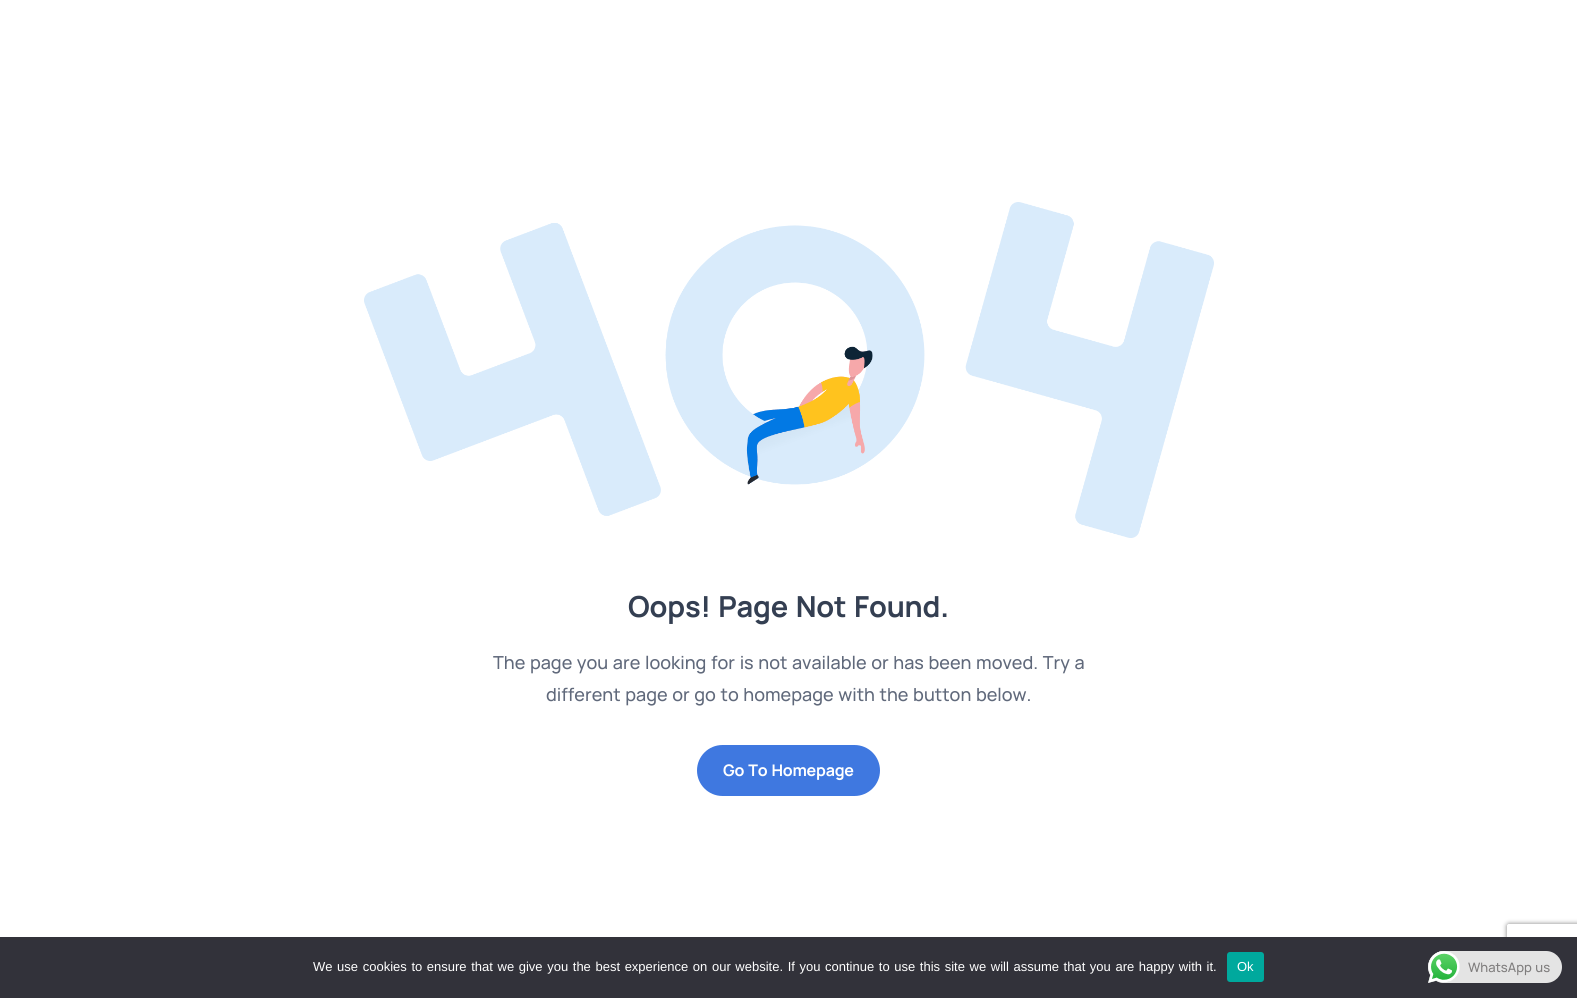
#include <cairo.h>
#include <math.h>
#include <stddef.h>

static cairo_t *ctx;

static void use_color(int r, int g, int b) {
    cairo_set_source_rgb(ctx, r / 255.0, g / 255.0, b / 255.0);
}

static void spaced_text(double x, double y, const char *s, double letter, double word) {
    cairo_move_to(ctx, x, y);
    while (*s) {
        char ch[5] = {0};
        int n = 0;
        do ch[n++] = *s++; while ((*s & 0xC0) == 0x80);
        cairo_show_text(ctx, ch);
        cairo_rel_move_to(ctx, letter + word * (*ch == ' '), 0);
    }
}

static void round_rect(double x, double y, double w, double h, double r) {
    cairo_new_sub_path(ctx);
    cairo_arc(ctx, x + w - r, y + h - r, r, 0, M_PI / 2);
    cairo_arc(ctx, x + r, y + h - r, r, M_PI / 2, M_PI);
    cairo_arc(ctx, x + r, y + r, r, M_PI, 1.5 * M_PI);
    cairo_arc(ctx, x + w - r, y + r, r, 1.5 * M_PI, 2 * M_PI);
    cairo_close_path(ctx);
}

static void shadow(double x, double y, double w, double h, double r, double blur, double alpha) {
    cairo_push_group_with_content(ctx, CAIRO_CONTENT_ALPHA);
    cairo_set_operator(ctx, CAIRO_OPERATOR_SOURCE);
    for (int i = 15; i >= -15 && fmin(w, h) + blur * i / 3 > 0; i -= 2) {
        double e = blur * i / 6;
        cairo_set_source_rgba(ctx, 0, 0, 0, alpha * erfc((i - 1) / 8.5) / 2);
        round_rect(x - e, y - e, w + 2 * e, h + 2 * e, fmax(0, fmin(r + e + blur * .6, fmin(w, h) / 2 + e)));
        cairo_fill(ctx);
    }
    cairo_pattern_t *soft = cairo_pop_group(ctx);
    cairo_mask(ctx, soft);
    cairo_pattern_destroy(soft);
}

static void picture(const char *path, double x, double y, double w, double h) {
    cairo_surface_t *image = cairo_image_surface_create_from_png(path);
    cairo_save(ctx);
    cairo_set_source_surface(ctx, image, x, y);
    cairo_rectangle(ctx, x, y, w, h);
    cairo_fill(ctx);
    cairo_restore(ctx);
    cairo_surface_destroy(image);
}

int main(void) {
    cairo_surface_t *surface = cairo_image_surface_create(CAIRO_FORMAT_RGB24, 1577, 998);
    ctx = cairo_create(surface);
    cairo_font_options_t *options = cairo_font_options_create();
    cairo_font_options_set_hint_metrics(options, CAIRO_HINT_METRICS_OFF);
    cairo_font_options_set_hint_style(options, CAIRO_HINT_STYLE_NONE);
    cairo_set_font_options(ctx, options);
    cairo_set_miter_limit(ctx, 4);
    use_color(255, 255, 255);
    cairo_paint(ctx);
    picture("img1.png", 364, 202, 850, 336);
    cairo_select_font_face(ctx, "Manrope", CAIRO_FONT_SLANT_NORMAL, CAIRO_FONT_WEIGHT_BOLD);
    cairo_set_font_size(ctx, 29);
    use_color(52, 63, 82);
    spaced_text(628, 617, "Oops! Page Not Found.", -0.2, 2);
    cairo_select_font_face(ctx, "Manrope Medium", CAIRO_FONT_SLANT_NORMAL, CAIRO_FONT_WEIGHT_NORMAL);
    cairo_set_font_size(ctx, 18);
    use_color(96, 105, 123);
    spaced_text(493, 669, "The page you are looking for is not available or has been moved. Try a", 0, 1);
    spaced_text(546, 701, "different page or go to homepage with the button below.", 0, 1);
    use_color(63, 120, 224);
    round_rect(697, 745, 183, 51, 25.5);
    cairo_fill(ctx);
    cairo_select_font_face(ctx, "Manrope", CAIRO_FONT_SLANT_NORMAL, CAIRO_FONT_WEIGHT_BOLD);
    cairo_set_font_size(ctx, 16);
    use_color(255, 255, 255);
    spaced_text(723, 776, "Go To Homepage", -0.2, 1);
    cairo_save(ctx);
    cairo_set_fill_rule(ctx, CAIRO_FILL_RULE_EVEN_ODD);
    cairo_new_path(ctx);
    cairo_move_to(ctx, 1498, 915);
    cairo_line_to(ctx, 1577, 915);
    cairo_line_to(ctx, 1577, 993);
    cairo_line_to(ctx, 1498, 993);
    cairo_close_path(ctx);
    cairo_move_to(ctx, 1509, 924);
    cairo_line_to(ctx, 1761, 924);
    cairo_curve_to(ctx, 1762, 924, 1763, 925, 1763, 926);
    cairo_line_to(ctx, 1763, 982);
    cairo_curve_to(ctx, 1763, 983, 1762, 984, 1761, 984);
    cairo_line_to(ctx, 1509, 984);
    cairo_curve_to(ctx, 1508, 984, 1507, 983, 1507, 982);
    cairo_line_to(ctx, 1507, 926);
    cairo_curve_to(ctx, 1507, 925, 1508, 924, 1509, 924);
    cairo_close_path(ctx);
    cairo_clip(ctx);
    use_color(128, 128, 128);
    shadow(1507, 924, 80, 60, 2, 2.5, 1);
    cairo_restore(ctx);
    use_color(50, 50, 58);
    cairo_rectangle(ctx, 0, 937, 1577, 61);
    cairo_fill(ctx);
    cairo_select_font_face(ctx, "Liberation Sans", CAIRO_FONT_SLANT_NORMAL, CAIRO_FONT_WEIGHT_NORMAL);
    cairo_set_font_size(ctx, 13);
    use_color(255, 255, 255);
    spaced_text(313, 971, "We use cookies to ensure that we give you the best experience on our website. If you continue to use this site we will assume that you are happy with it.", 0, 1);
    use_color(0, 169, 157);
    round_rect(1227, 952, 37, 30, 3);
    cairo_fill(ctx);
    use_color(255, 255, 255);
    cairo_move_to(ctx, 1237, 971);
    cairo_show_text(ctx, "Ok");
    use_color(228, 228, 228);
    round_rect(1428, 951, 134, 32, 16);
    cairo_fill(ctx);
    picture("img2.png", 1428, 951, 32, 32);
    cairo_select_font_face(ctx, "Manrope Medium", CAIRO_FONT_SLANT_NORMAL, CAIRO_FONT_WEIGHT_NORMAL);
    use_color(127, 125, 125);
    spaced_text(1468, 972, "WhatsApp us", 0, 1);
    cairo_surface_write_to_png(surface, "result.png");
    cairo_font_options_destroy(options);
    cairo_destroy(ctx);
    cairo_surface_destroy(surface);
    return 0;
}
